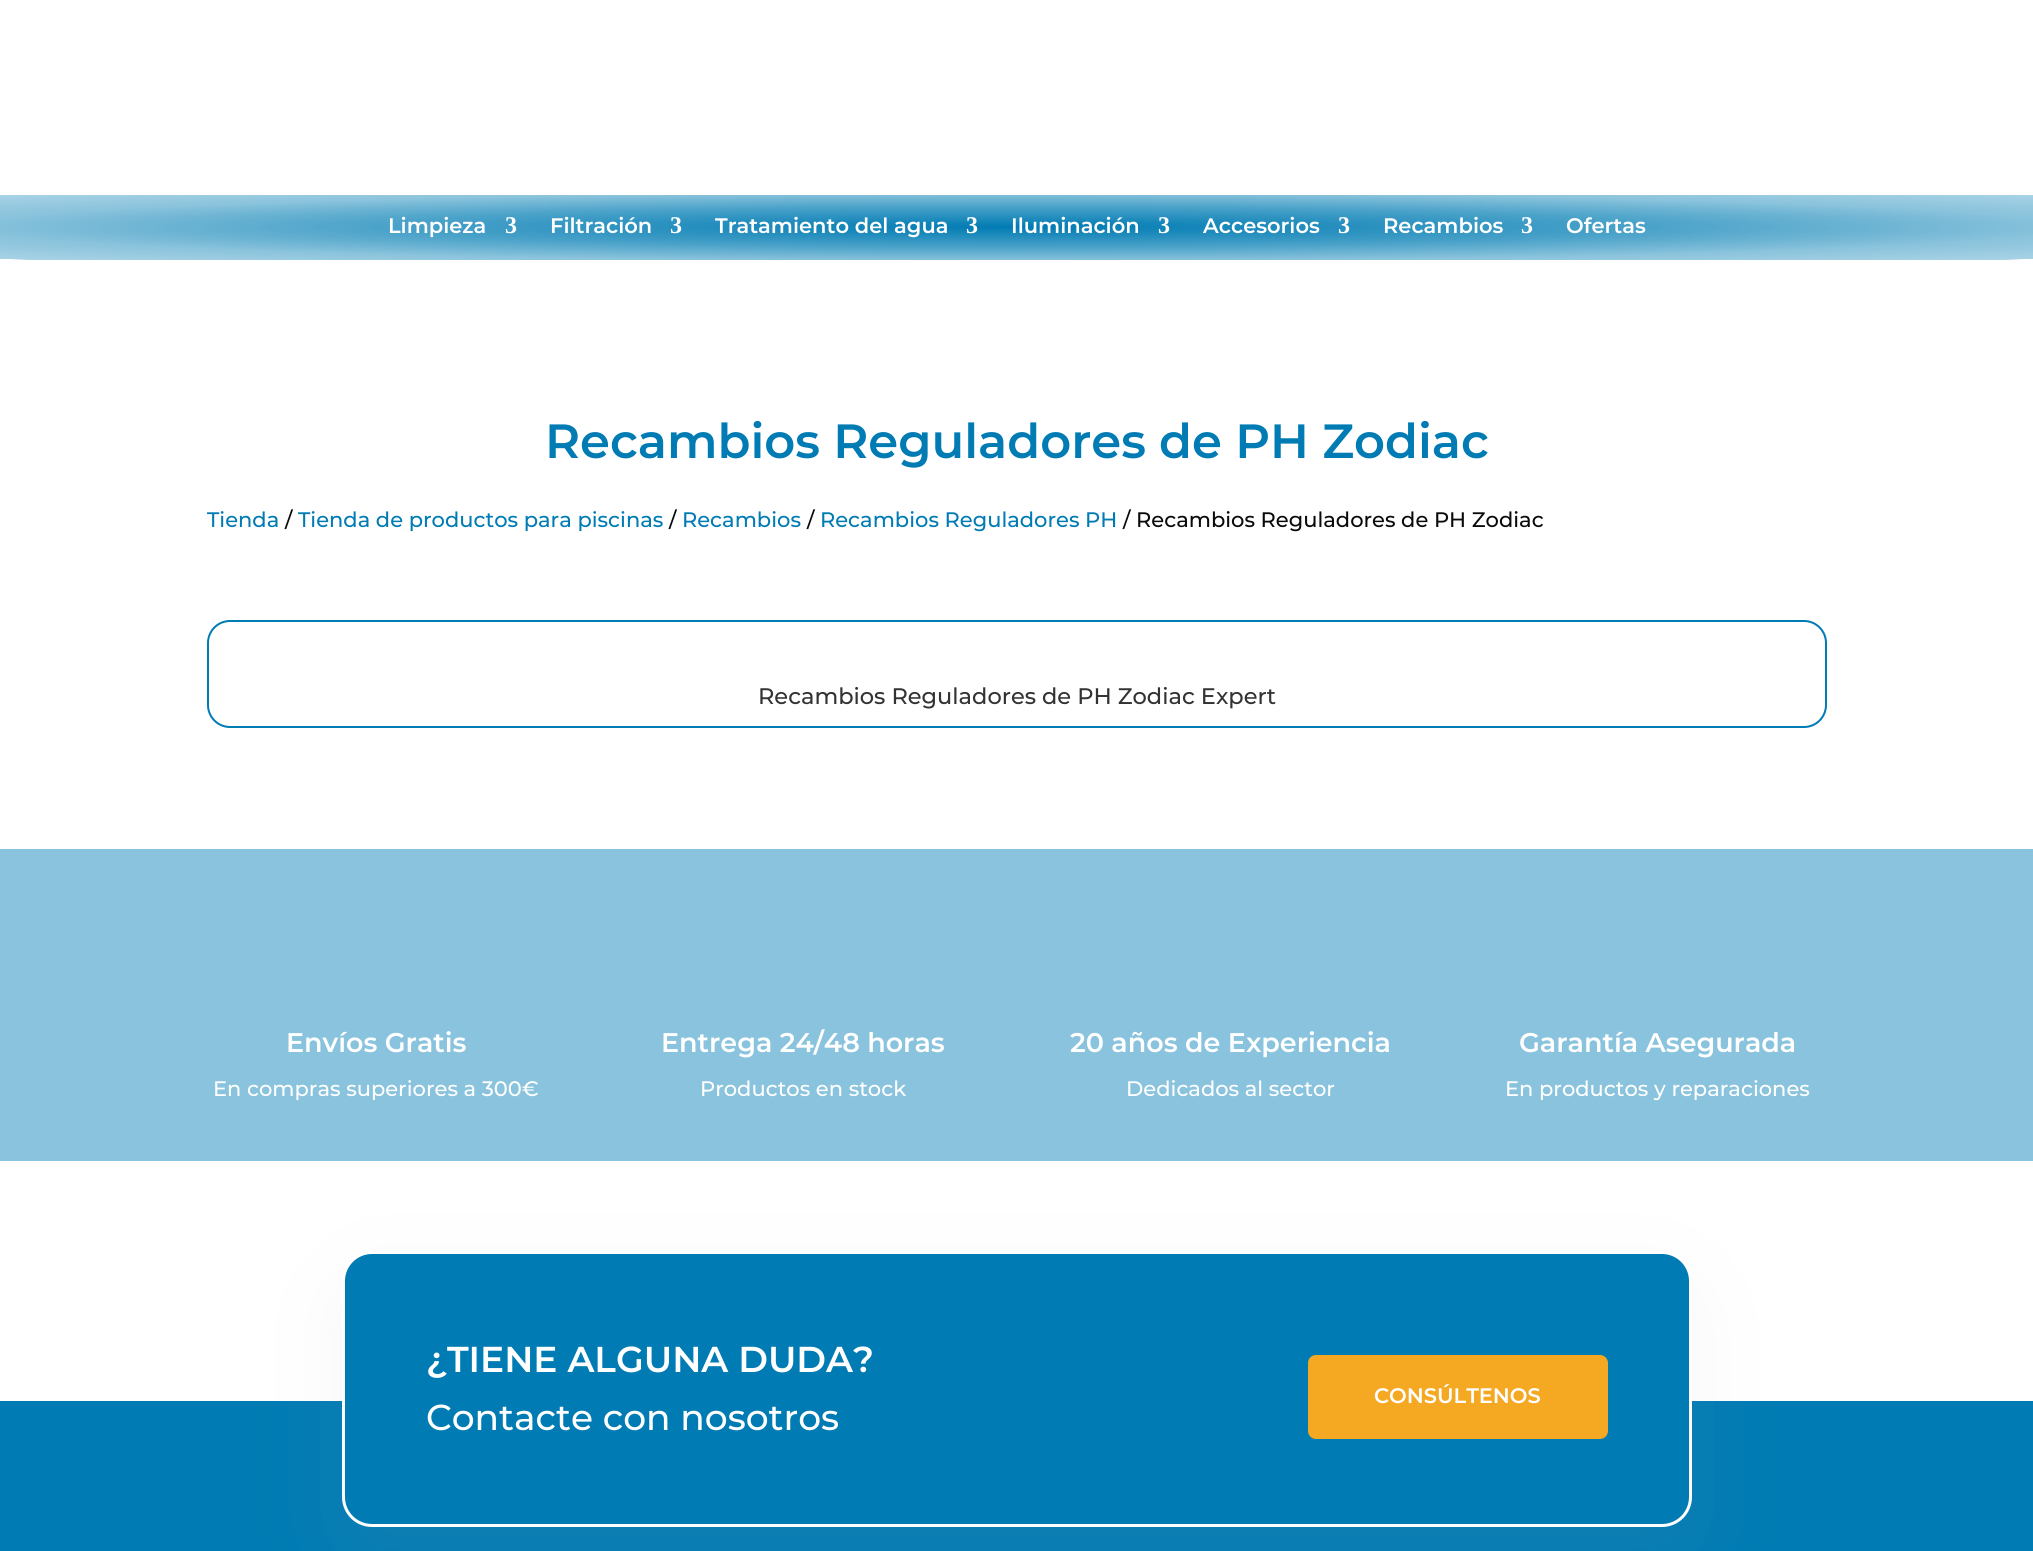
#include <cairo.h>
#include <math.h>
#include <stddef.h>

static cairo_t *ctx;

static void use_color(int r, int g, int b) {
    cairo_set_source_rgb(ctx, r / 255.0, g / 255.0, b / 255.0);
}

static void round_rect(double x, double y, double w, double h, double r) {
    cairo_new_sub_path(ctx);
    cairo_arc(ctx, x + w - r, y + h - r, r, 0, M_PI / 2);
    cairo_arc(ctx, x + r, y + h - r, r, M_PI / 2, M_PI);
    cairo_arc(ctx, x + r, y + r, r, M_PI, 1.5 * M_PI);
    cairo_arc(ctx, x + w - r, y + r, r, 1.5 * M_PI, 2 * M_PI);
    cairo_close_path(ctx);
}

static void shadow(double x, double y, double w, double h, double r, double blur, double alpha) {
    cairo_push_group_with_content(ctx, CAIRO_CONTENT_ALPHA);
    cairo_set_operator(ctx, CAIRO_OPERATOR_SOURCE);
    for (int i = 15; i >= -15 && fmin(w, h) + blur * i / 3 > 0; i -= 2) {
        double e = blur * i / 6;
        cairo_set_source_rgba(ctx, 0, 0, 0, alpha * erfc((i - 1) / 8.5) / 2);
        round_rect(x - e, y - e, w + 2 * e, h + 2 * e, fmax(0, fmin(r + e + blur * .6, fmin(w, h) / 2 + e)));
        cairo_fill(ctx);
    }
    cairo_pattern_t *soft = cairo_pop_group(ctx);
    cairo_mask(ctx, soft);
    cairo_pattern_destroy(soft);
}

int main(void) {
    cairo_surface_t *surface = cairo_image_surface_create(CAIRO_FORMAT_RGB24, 2033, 1551);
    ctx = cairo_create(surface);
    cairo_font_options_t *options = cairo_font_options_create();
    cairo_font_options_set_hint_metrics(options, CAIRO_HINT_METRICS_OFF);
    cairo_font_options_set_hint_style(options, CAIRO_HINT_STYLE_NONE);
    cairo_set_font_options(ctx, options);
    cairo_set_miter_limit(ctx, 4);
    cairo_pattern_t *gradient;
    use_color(255, 255, 255);
    cairo_paint(ctx);
    gradient = cairo_pattern_create_radial(0, 0, 0, 0, 0, 1);
    cairo_pattern_set_matrix(gradient, &(cairo_matrix_t){1.0 / 1438, 0, 0, 1.0 / 46, -1.0 * 1017 / 1438, -1.0 * 227 / 46});
    cairo_pattern_add_color_stop_rgba(gradient, 0, 0, 0.482, 0.702, 1);
    cairo_pattern_add_color_stop_rgba(gradient, 0.44, 0.29, 0.635, 0.788, 1);
    cairo_pattern_add_color_stop_rgba(gradient, 0.74, 0.541, 0.765, 0.863, 1);
    cairo_pattern_add_color_stop_rgba(gradient, 0.99, 0.655, 0.824, 0.898, 1);
    cairo_pattern_add_color_stop_rgba(gradient, 1, 1, 1, 1, 1);
    cairo_set_source(ctx, gradient);
    cairo_pattern_destroy(gradient);
    cairo_rectangle(ctx, 0, 195, 2033, 65);
    cairo_fill(ctx);
    cairo_select_font_face(ctx, "Montserrat SemiBold", CAIRO_FONT_SLANT_NORMAL, CAIRO_FONT_WEIGHT_NORMAL);
    cairo_set_font_size(ctx, 21);
    use_color(255, 255, 255);
    cairo_move_to(ctx, 388, 233);
    cairo_show_text(ctx, "Limpieza");
    cairo_select_font_face(ctx, "Liberation Serif", CAIRO_FONT_SLANT_NORMAL, CAIRO_FONT_WEIGHT_BOLD);
    cairo_set_font_size(ctx, 24);
    cairo_move_to(ctx, 505, 233);
    cairo_show_text(ctx, "3");
    cairo_select_font_face(ctx, "Montserrat SemiBold", CAIRO_FONT_SLANT_NORMAL, CAIRO_FONT_WEIGHT_NORMAL);
    cairo_set_font_size(ctx, 21);
    cairo_move_to(ctx, 550, 233);
    cairo_show_text(ctx, "Filtración");
    cairo_select_font_face(ctx, "Liberation Serif", CAIRO_FONT_SLANT_NORMAL, CAIRO_FONT_WEIGHT_BOLD);
    cairo_set_font_size(ctx, 24);
    cairo_move_to(ctx, 670, 233);
    cairo_show_text(ctx, "3");
    cairo_select_font_face(ctx, "Montserrat SemiBold", CAIRO_FONT_SLANT_NORMAL, CAIRO_FONT_WEIGHT_NORMAL);
    cairo_set_font_size(ctx, 21);
    cairo_move_to(ctx, 715, 233);
    cairo_show_text(ctx, "Tratamiento del agua");
    cairo_select_font_face(ctx, "Liberation Serif", CAIRO_FONT_SLANT_NORMAL, CAIRO_FONT_WEIGHT_BOLD);
    cairo_set_font_size(ctx, 24);
    cairo_move_to(ctx, 966, 233);
    cairo_show_text(ctx, "3");
    cairo_select_font_face(ctx, "Montserrat SemiBold", CAIRO_FONT_SLANT_NORMAL, CAIRO_FONT_WEIGHT_NORMAL);
    cairo_set_font_size(ctx, 21);
    cairo_move_to(ctx, 1011, 233);
    cairo_show_text(ctx, "Iluminación");
    cairo_select_font_face(ctx, "Liberation Serif", CAIRO_FONT_SLANT_NORMAL, CAIRO_FONT_WEIGHT_BOLD);
    cairo_set_font_size(ctx, 24);
    cairo_move_to(ctx, 1158, 233);
    cairo_show_text(ctx, "3");
    cairo_select_font_face(ctx, "Montserrat SemiBold", CAIRO_FONT_SLANT_NORMAL, CAIRO_FONT_WEIGHT_NORMAL);
    cairo_set_font_size(ctx, 21);
    cairo_move_to(ctx, 1203, 233);
    cairo_show_text(ctx, "Accesorios");
    cairo_select_font_face(ctx, "Liberation Serif", CAIRO_FONT_SLANT_NORMAL, CAIRO_FONT_WEIGHT_BOLD);
    cairo_set_font_size(ctx, 24);
    cairo_move_to(ctx, 1338, 233);
    cairo_show_text(ctx, "3");
    cairo_select_font_face(ctx, "Montserrat SemiBold", CAIRO_FONT_SLANT_NORMAL, CAIRO_FONT_WEIGHT_NORMAL);
    cairo_set_font_size(ctx, 21);
    cairo_move_to(ctx, 1383, 233);
    cairo_show_text(ctx, "Recambios");
    cairo_select_font_face(ctx, "Liberation Serif", CAIRO_FONT_SLANT_NORMAL, CAIRO_FONT_WEIGHT_BOLD);
    cairo_set_font_size(ctx, 24);
    cairo_move_to(ctx, 1521, 233);
    cairo_show_text(ctx, "3");
    cairo_select_font_face(ctx, "Montserrat SemiBold", CAIRO_FONT_SLANT_NORMAL, CAIRO_FONT_WEIGHT_NORMAL);
    cairo_set_font_size(ctx, 21);
    cairo_move_to(ctx, 1566, 233);
    cairo_show_text(ctx, "Ofertas");
    cairo_set_font_size(ctx, 48);
    use_color(0, 123, 179);
    cairo_move_to(ctx, 545, 458);
    cairo_show_text(ctx, "Recambios Reguladores de PH Zodiac");
    cairo_select_font_face(ctx, "Montserrat Medium", CAIRO_FONT_SLANT_NORMAL, CAIRO_FONT_WEIGHT_NORMAL);
    cairo_set_font_size(ctx, 21);
    cairo_move_to(ctx, 207, 527);
    cairo_show_text(ctx, "Tienda");
    use_color(10, 10, 10);
    cairo_move_to(ctx, 285, 527);
    cairo_show_text(ctx, "/");
    use_color(0, 123, 179);
    cairo_move_to(ctx, 298, 527);
    cairo_show_text(ctx, "Tienda de productos para piscinas");
    use_color(10, 10, 10);
    cairo_move_to(ctx, 669, 527);
    cairo_show_text(ctx, "/");
    use_color(0, 123, 179);
    cairo_move_to(ctx, 682, 527);
    cairo_show_text(ctx, "Recambios");
    use_color(10, 10, 10);
    cairo_move_to(ctx, 807, 527);
    cairo_show_text(ctx, "/");
    use_color(0, 123, 179);
    cairo_move_to(ctx, 820, 527);
    cairo_show_text(ctx, "Recambios Reguladores PH");
    use_color(10, 10, 10);
    cairo_move_to(ctx, 1123, 527);
    cairo_show_text(ctx, "/ Recambios Reguladores de PH Zodiac");
    round_rect(208, 621, 1618, 106, 22);
    use_color(0, 123, 179);
    cairo_stroke(ctx);
    cairo_set_font_size(ctx, 22.5);
    use_color(51, 51, 51);
    cairo_move_to(ctx, 758, 704);
    cairo_show_text(ctx, "Recambios Reguladores de PH Zodiac Expert");
    use_color(138, 195, 221);
    cairo_rectangle(ctx, 0, 849, 2033, 312);
    cairo_fill(ctx);
    cairo_select_font_face(ctx, "Montserrat SemiBold", CAIRO_FONT_SLANT_NORMAL, CAIRO_FONT_WEIGHT_NORMAL);
    cairo_set_font_size(ctx, 27);
    use_color(255, 255, 255);
    cairo_move_to(ctx, 286, 1052);
    cairo_show_text(ctx, "Envíos Gratis");
    cairo_select_font_face(ctx, "Montserrat Medium", CAIRO_FONT_SLANT_NORMAL, CAIRO_FONT_WEIGHT_NORMAL);
    cairo_set_font_size(ctx, 21);
    cairo_move_to(ctx, 213, 1096);
    cairo_show_text(ctx, "En compras superiores a 300€");
    cairo_select_font_face(ctx, "Montserrat SemiBold", CAIRO_FONT_SLANT_NORMAL, CAIRO_FONT_WEIGHT_NORMAL);
    cairo_set_font_size(ctx, 27);
    cairo_move_to(ctx, 661, 1052);
    cairo_show_text(ctx, "Entrega 24/48 horas");
    cairo_select_font_face(ctx, "Montserrat Medium", CAIRO_FONT_SLANT_NORMAL, CAIRO_FONT_WEIGHT_NORMAL);
    cairo_set_font_size(ctx, 21);
    cairo_move_to(ctx, 700, 1096);
    cairo_show_text(ctx, "Productos en stock");
    cairo_select_font_face(ctx, "Montserrat SemiBold", CAIRO_FONT_SLANT_NORMAL, CAIRO_FONT_WEIGHT_NORMAL);
    cairo_set_font_size(ctx, 27);
    cairo_move_to(ctx, 1070, 1052);
    cairo_show_text(ctx, "20 años de Experiencia");
    cairo_select_font_face(ctx, "Montserrat Medium", CAIRO_FONT_SLANT_NORMAL, CAIRO_FONT_WEIGHT_NORMAL);
    cairo_set_font_size(ctx, 21);
    cairo_move_to(ctx, 1126, 1096);
    cairo_show_text(ctx, "Dedicados al sector");
    cairo_select_font_face(ctx, "Montserrat SemiBold", CAIRO_FONT_SLANT_NORMAL, CAIRO_FONT_WEIGHT_NORMAL);
    cairo_set_font_size(ctx, 27);
    cairo_move_to(ctx, 1519, 1052);
    cairo_show_text(ctx, "Garantía Asegurada");
    cairo_select_font_face(ctx, "Montserrat Medium", CAIRO_FONT_SLANT_NORMAL, CAIRO_FONT_WEIGHT_NORMAL);
    cairo_set_font_size(ctx, 21);
    cairo_move_to(ctx, 1505, 1096);
    cairo_show_text(ctx, "En productos y reparaciones");
    use_color(0, 123, 179);
    cairo_rectangle(ctx, 0, 1401, 2033, 150);
    cairo_fill(ctx);
    use_color(165, 165, 165);
    shadow(342, 1281, 1350, 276, 30, 45, 0.1);
    use_color(0, 123, 179);
    round_rect(343.5, 1252.5, 1347, 273, 28.5);
    cairo_fill_preserve(ctx);
    use_color(255, 255, 255);
    cairo_set_line_width(ctx, 3);
    cairo_stroke(ctx);
    cairo_select_font_face(ctx, "Montserrat SemiBold", CAIRO_FONT_SLANT_NORMAL, CAIRO_FONT_WEIGHT_NORMAL);
    cairo_set_font_size(ctx, 36);
    cairo_move_to(ctx, 426, 1372);
    cairo_show_text(ctx, "¿TIENE ALGUNA DUDA?");
    cairo_select_font_face(ctx, "Montserrat Medium", CAIRO_FONT_SLANT_NORMAL, CAIRO_FONT_WEIGHT_NORMAL);
    cairo_move_to(ctx, 426, 1430);
    cairo_show_text(ctx, "Contacte con nosotros");
    use_color(245, 168, 33);
    round_rect(1308, 1355, 300, 84, 8);
    cairo_fill(ctx);
    cairo_select_font_face(ctx, "Montserrat SemiBold", CAIRO_FONT_SLANT_NORMAL, CAIRO_FONT_WEIGHT_NORMAL);
    cairo_set_font_size(ctx, 21);
    use_color(255, 255, 255);
    cairo_move_to(ctx, 1374, 1403);
    cairo_show_text(ctx, "CONSÚLTENOS");
    cairo_surface_write_to_png(surface, "result.png");
    cairo_font_options_destroy(options);
    cairo_destroy(ctx);
    cairo_surface_destroy(surface);
    return 0;
}
